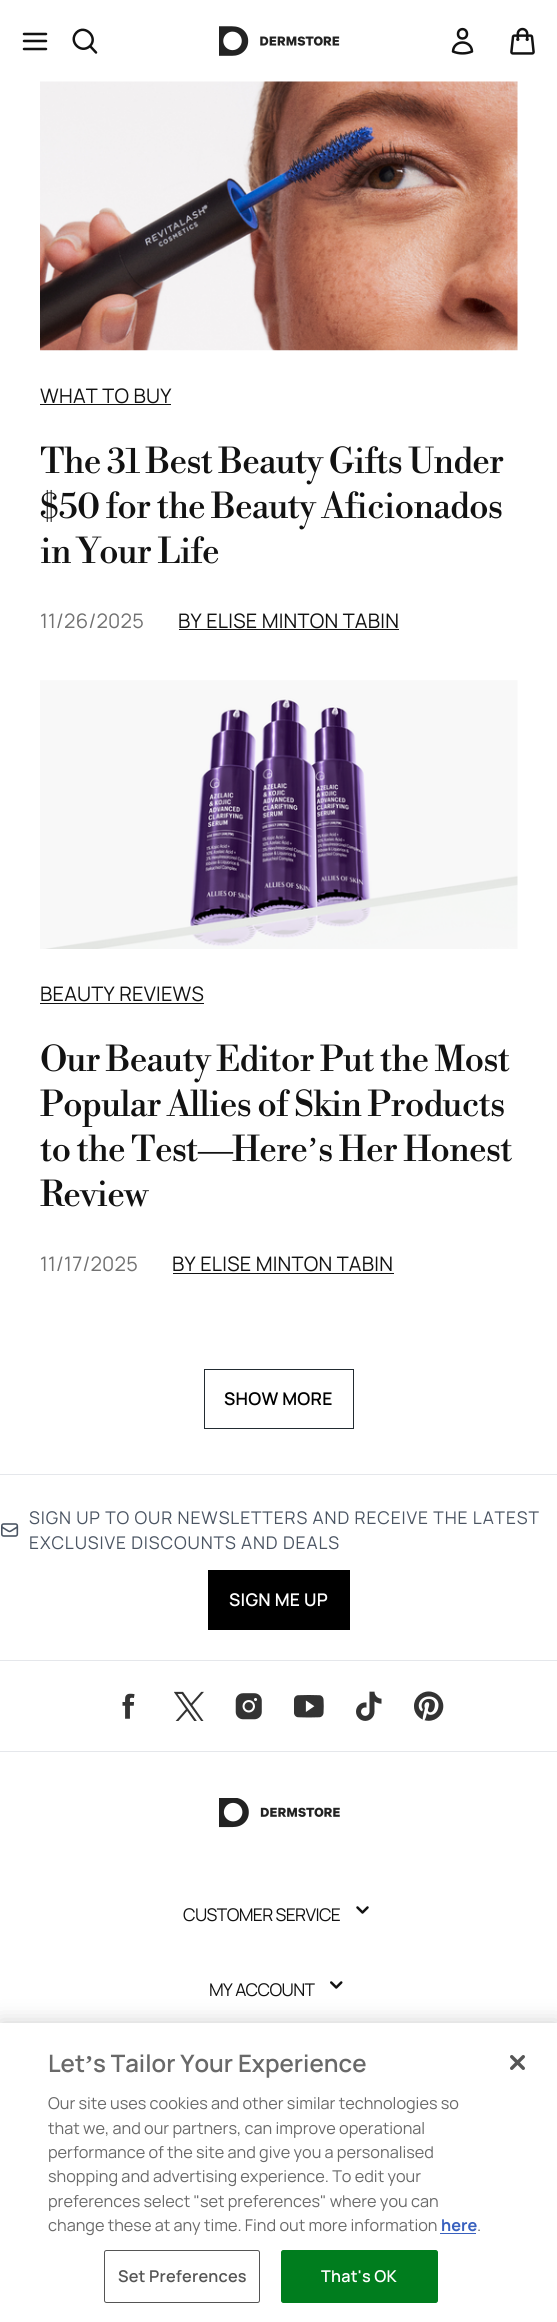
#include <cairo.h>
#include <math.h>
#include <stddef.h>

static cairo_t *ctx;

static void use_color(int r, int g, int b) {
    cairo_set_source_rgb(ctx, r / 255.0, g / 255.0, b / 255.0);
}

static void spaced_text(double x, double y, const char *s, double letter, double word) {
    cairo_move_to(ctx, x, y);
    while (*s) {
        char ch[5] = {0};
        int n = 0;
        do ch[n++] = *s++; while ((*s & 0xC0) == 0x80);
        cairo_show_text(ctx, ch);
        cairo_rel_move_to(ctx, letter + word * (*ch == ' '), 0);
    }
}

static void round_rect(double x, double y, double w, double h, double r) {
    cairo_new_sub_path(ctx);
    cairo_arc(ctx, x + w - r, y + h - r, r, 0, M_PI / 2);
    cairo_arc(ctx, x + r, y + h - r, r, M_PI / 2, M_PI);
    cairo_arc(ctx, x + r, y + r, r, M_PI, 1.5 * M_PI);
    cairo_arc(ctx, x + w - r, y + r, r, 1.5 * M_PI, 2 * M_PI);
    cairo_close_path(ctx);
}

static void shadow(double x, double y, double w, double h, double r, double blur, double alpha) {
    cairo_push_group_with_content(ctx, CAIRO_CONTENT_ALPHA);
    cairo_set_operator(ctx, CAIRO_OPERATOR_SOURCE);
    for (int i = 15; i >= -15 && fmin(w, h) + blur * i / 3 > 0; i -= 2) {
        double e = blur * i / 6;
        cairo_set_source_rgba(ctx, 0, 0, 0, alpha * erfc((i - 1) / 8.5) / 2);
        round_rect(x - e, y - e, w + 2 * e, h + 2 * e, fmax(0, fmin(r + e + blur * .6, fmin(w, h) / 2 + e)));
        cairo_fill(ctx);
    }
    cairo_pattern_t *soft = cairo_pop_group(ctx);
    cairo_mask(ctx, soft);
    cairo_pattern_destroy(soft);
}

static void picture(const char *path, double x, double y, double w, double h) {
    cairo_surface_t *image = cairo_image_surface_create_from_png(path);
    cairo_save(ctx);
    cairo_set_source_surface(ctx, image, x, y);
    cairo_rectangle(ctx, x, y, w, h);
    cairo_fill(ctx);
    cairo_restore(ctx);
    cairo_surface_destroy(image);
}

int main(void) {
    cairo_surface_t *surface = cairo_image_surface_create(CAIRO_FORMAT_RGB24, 557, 2322);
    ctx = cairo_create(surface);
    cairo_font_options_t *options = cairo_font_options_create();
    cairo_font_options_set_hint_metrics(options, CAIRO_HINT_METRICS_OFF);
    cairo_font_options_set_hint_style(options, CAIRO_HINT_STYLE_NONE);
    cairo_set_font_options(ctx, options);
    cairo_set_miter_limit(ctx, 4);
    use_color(255, 255, 255);
    cairo_paint(ctx);
    cairo_new_path(ctx);
    cairo_move_to(ctx, 24, 41);
    cairo_line_to(ctx, 46, 41);
    cairo_move_to(ctx, 24, 34);
    cairo_line_to(ctx, 46, 34);
    cairo_move_to(ctx, 24, 49);
    cairo_line_to(ctx, 46, 49);
    use_color(18, 18, 18);
    cairo_set_line_width(ctx, 2.5);
    cairo_set_line_cap(ctx, CAIRO_LINE_CAP_ROUND);
    cairo_set_line_join(ctx, CAIRO_LINE_JOIN_ROUND);
    cairo_stroke(ctx);
    cairo_new_path(ctx);
    cairo_move_to(ctx, 96, 52.5);
    cairo_line_to(ctx, 90, 46);
    cairo_move_to(ctx, 90, 46);
    cairo_curve_to(ctx, 98.5, 37.5, 85, 24, 76.5, 32.5);
    cairo_curve_to(ctx, 68, 41.5, 81, 54.5, 90, 46);
    cairo_close_path(ctx);
    cairo_stroke(ctx);
    picture("img1.png", 219, 26, 121, 30);
    cairo_new_path(ctx);
    cairo_move_to(ctx, 467, 34);
    cairo_curve_to(ctx, 467, 40, 458, 40, 458, 34);
    cairo_curve_to(ctx, 458, 27.5, 467, 27.5, 467, 34);
    cairo_close_path(ctx);
    cairo_move_to(ctx, 453, 51.5);
    cairo_curve_to(ctx, 453.5, 39.5, 471.5, 39.5, 472, 51.5);
    cairo_curve_to(ctx, 466, 54, 459, 54, 453, 51.5);
    cairo_close_path(ctx);
    cairo_stroke(ctx);
    picture("img2.png", 510, 27, 25, 28);
    picture("img3.png", 40, 81, 478, 270);
    cairo_select_font_face(ctx, "Manrope", CAIRO_FONT_SLANT_NORMAL, CAIRO_FONT_WEIGHT_NORMAL);
    cairo_set_font_size(ctx, 20);
    spaced_text(40, 403, "WHAT TO BUY", 0.25, 0);
    cairo_rectangle(ctx, 40, 404, 131, 1);
    cairo_fill(ctx);
    cairo_select_font_face(ctx, "Libre Bodoni", CAIRO_FONT_SLANT_NORMAL, CAIRO_FONT_WEIGHT_NORMAL);
    cairo_set_font_size(ctx, 35);
    spaced_text(40, 473, "The 31 Best Beauty Gifts Under", -0.9, 0);
    spaced_text(40, 518, "$50 for the Beauty Aficionados", -0.9, 0);
    spaced_text(40, 563, "in Your Life", -0.9, 0);
    cairo_select_font_face(ctx, "Manrope", CAIRO_FONT_SLANT_NORMAL, CAIRO_FONT_WEIGHT_NORMAL);
    cairo_set_font_size(ctx, 20);
    use_color(113, 113, 113);
    spaced_text(40, 628, "11/26/2025", 0.25, 0);
    use_color(18, 18, 18);
    spaced_text(178, 628, "BY ELISE MINTON TABIN", 0.25, 0);
    cairo_rectangle(ctx, 179, 629, 220, 1);
    cairo_fill(ctx);
    picture("img4.png", 40, 680, 478, 269);
    spaced_text(40, 1001, "BEAUTY REVIEWS", 0.25, 0);
    cairo_rectangle(ctx, 40, 1003, 164, 1);
    cairo_fill(ctx);
    cairo_select_font_face(ctx, "Libre Bodoni", CAIRO_FONT_SLANT_NORMAL, CAIRO_FONT_WEIGHT_NORMAL);
    cairo_set_font_size(ctx, 35);
    spaced_text(40, 1071, "Our Beauty Editor Put the Most", -0.9, 0);
    spaced_text(40, 1116, "Popular Allies of Skin Products", -0.9, 0);
    spaced_text(40, 1161, "to the Test", -0.9, 0);
    cairo_select_font_face(ctx, "Liberation Serif", CAIRO_FONT_SLANT_NORMAL, CAIRO_FONT_WEIGHT_NORMAL);
    spaced_text(198, 1161, "—", -0.9, 0);
    cairo_select_font_face(ctx, "Libre Bodoni", CAIRO_FONT_SLANT_NORMAL, CAIRO_FONT_WEIGHT_NORMAL);
    spaced_text(232, 1161, "Here", -0.9, 0);
    cairo_select_font_face(ctx, "Liberation Serif", CAIRO_FONT_SLANT_NORMAL, CAIRO_FONT_WEIGHT_NORMAL);
    spaced_text(307, 1161, "’", -0.9, 0);
    cairo_select_font_face(ctx, "Libre Bodoni", CAIRO_FONT_SLANT_NORMAL, CAIRO_FONT_WEIGHT_NORMAL);
    spaced_text(318, 1161, "s Her Honest", -0.9, 0);
    spaced_text(40, 1206, "Review", -0.9, 0);
    cairo_select_font_face(ctx, "Manrope", CAIRO_FONT_SLANT_NORMAL, CAIRO_FONT_WEIGHT_NORMAL);
    cairo_set_font_size(ctx, 20);
    use_color(113, 113, 113);
    spaced_text(40, 1271, "11/17/2025", 0.25, 0);
    use_color(18, 18, 18);
    spaced_text(172, 1271, "BY ELISE MINTON TABIN", 0.25, 0);
    cairo_rectangle(ctx, 173, 1273, 221, 1);
    cairo_fill(ctx);
    cairo_rectangle(ctx, 204.5, 1369.5, 149, 59);
    use_color(34, 43, 49);
    cairo_set_line_width(ctx, 1);
    cairo_set_line_cap(ctx, CAIRO_LINE_CAP_BUTT);
    cairo_set_line_join(ctx, CAIRO_LINE_JOIN_MITER);
    cairo_stroke(ctx);
    cairo_select_font_face(ctx, "Manrope SemiBold", CAIRO_FONT_SLANT_NORMAL, CAIRO_FONT_WEIGHT_NORMAL);
    cairo_set_font_size(ctx, 17.5);
    use_color(0, 0, 0);
    spaced_text(224, 1405, "SHOW MORE", 0.25, 0);
    use_color(229, 231, 235);
    cairo_rectangle(ctx, 0, 1474, 557, 1);
    cairo_fill(ctx);
    cairo_rectangle(ctx, 0, 1751, 557, 1);
    cairo_fill(ctx);
    cairo_rectangle(ctx, 0, 1660, 557, 1);
    cairo_fill(ctx);
    picture("img5.png", 1, 1523, 18, 14);
    cairo_select_font_face(ctx, "Manrope", CAIRO_FONT_SLANT_NORMAL, CAIRO_FONT_WEIGHT_NORMAL);
    use_color(75, 85, 99);
    spaced_text(29, 1524, "SIGN UP TO OUR NEWSLETTERS AND RECEIVE THE LATEST", 0.9, 0);
    spaced_text(29, 1549, "EXCLUSIVE DISCOUNTS AND DEALS", 0.9, 0);
    use_color(0, 0, 0);
    cairo_rectangle(ctx, 208, 1570, 142, 60);
    cairo_fill(ctx);
    cairo_select_font_face(ctx, "Manrope SemiBold", CAIRO_FONT_SLANT_NORMAL, CAIRO_FONT_WEIGHT_NORMAL);
    use_color(255, 255, 255);
    spaced_text(229, 1606, "SIGN ME UP", 0.25, 0);
    picture("img6.png", 122, 1693, 13, 26);
    picture("img7.png", 174, 1691, 30, 30);
    picture("img8.png", 235, 1693, 27, 27);
    picture("img9.png", 294, 1695, 30, 23);
    picture("img10.png", 356, 1691, 26, 30);
    picture("img11.png", 414, 1691, 30, 30);
    picture("img12.png", 219, 1798, 121, 30);
    cairo_select_font_face(ctx, "Manrope", CAIRO_FONT_SLANT_NORMAL, CAIRO_FONT_WEIGHT_NORMAL);
    use_color(18, 18, 18);
    spaced_text(183, 1921, "CUSTOMER SERVICE", -0.6, 0);
    picture("img13.png", 356, 1906, 13, 8);
    spaced_text(209, 1996, "MY ACCOUNT", -0.6, 0);
    picture("img14.png", 330, 1981, 13, 8);
    use_color(0, 0, 0);
    shadow(0, 2023, 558, 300, 0, 11, 0.2);
    use_color(255, 255, 255);
    cairo_rectangle(ctx, 0, 2023, 557, 299);
    cairo_fill(ctx);
    cairo_select_font_face(ctx, "Manrope SemiBold", CAIRO_FONT_SLANT_NORMAL, CAIRO_FONT_WEIGHT_NORMAL);
    cairo_set_font_size(ctx, 24);
    use_color(105, 105, 105);
    cairo_move_to(ctx, 48, 2072);
    cairo_show_text(ctx, "Let");
    cairo_select_font_face(ctx, "Liberation Serif", CAIRO_FONT_SLANT_NORMAL, CAIRO_FONT_WEIGHT_BOLD);
    cairo_move_to(ctx, 85, 2072);
    cairo_show_text(ctx, "’");
    cairo_select_font_face(ctx, "Manrope SemiBold", CAIRO_FONT_SLANT_NORMAL, CAIRO_FONT_WEIGHT_NORMAL);
    cairo_move_to(ctx, 93, 2072);
    cairo_show_text(ctx, "s Tailor Your Experience");
    cairo_select_font_face(ctx, "Manrope", CAIRO_FONT_SLANT_NORMAL, CAIRO_FONT_WEIGHT_NORMAL);
    cairo_set_font_size(ctx, 16.25);
    cairo_move_to(ctx, 48, 2109);
    cairo_show_text(ctx, "Our site uses cookies and other similar technologies so");
    cairo_move_to(ctx, 48, 2134);
    cairo_show_text(ctx, "that we, and our partners, can improve operational");
    cairo_move_to(ctx, 48, 2158);
    cairo_show_text(ctx, "performance of the site and give you a personalised");
    cairo_move_to(ctx, 48, 2182);
    cairo_show_text(ctx, "shopping and advertising experience. To edit your");
    cairo_move_to(ctx, 48, 2207);
    cairo_show_text(ctx, "preferences select \"set preferences\" where you can");
    cairo_move_to(ctx, 48, 2231);
    cairo_show_text(ctx, "change these at any time. Find out more information");
    cairo_select_font_face(ctx, "Manrope", CAIRO_FONT_SLANT_NORMAL, CAIRO_FONT_WEIGHT_BOLD);
    use_color(56, 96, 190);
    cairo_move_to(ctx, 441, 2231);
    cairo_show_text(ctx, "here");
    cairo_rectangle(ctx, 440, 2233, 36, 1);
    cairo_fill(ctx);
    cairo_select_font_face(ctx, "Manrope", CAIRO_FONT_SLANT_NORMAL, CAIRO_FONT_WEIGHT_NORMAL);
    use_color(105, 105, 105);
    cairo_move_to(ctx, 477, 2231);
    cairo_show_text(ctx, ".");
    round_rect(104.5, 2250.5, 155, 52, 2);
    use_color(85, 85, 85);
    cairo_stroke(ctx);
    cairo_select_font_face(ctx, "Manrope SemiBold", CAIRO_FONT_SLANT_NORMAL, CAIRO_FONT_WEIGHT_NORMAL);
    spaced_text(118, 2282, "Set Preferences", 0.2, 0);
    use_color(0, 125, 30);
    round_rect(281.5, 2250.5, 156, 52, 2);
    cairo_fill_preserve(ctx);
    cairo_stroke(ctx);
    use_color(255, 255, 255);
    spaced_text(321, 2282, "That's OK", 0.2, 0);
    picture("img15.png", 510, 2055, 15, 15);
    cairo_surface_write_to_png(surface, "result.png");
    cairo_font_options_destroy(options);
    cairo_destroy(ctx);
    cairo_surface_destroy(surface);
    return 0;
}
